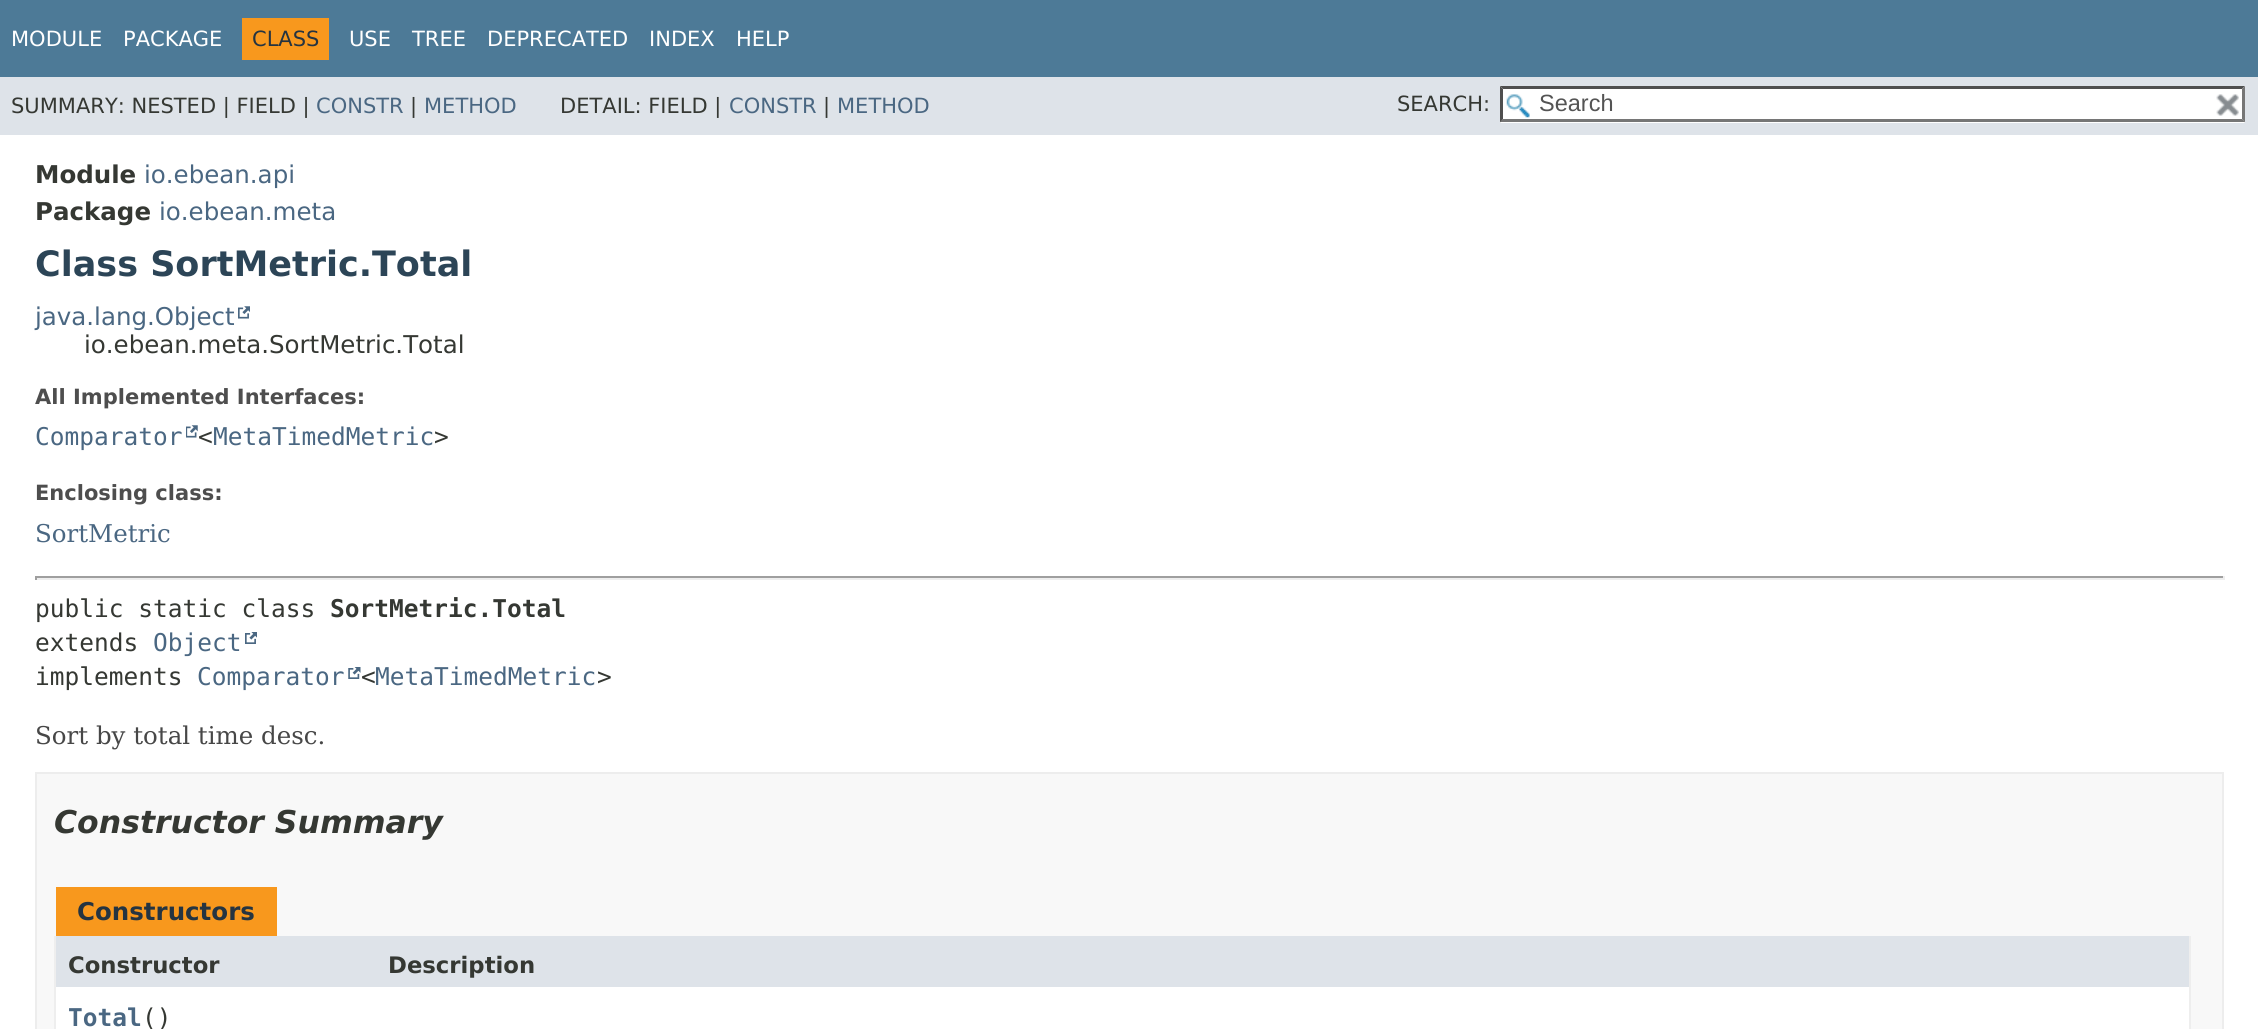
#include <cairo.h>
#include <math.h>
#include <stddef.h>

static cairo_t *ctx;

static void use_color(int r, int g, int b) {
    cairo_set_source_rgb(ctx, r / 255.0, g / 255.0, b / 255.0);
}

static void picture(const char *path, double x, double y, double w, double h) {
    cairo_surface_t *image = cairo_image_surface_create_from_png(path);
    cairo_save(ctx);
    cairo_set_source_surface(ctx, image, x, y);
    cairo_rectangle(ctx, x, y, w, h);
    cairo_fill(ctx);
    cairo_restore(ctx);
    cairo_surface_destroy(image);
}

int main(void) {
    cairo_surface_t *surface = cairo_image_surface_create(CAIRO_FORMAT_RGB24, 2258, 1029);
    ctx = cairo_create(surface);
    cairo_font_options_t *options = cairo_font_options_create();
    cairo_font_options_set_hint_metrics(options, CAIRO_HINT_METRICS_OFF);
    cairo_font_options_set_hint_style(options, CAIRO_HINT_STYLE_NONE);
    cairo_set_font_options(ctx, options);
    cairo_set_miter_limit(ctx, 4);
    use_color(255, 255, 255);
    cairo_paint(ctx);
    use_color(77, 122, 151);
    cairo_rectangle(ctx, 0, 0, 2258, 77);
    cairo_fill(ctx);
    cairo_select_font_face(ctx, "DejaVu Sans", CAIRO_FONT_SLANT_NORMAL, CAIRO_FONT_WEIGHT_NORMAL);
    cairo_set_font_size(ctx, 21);
    use_color(255, 255, 255);
    cairo_move_to(ctx, 11, 46);
    cairo_show_text(ctx, "MODULE");
    cairo_move_to(ctx, 123, 46);
    cairo_show_text(ctx, "PACKAGE");
    use_color(248, 152, 29);
    cairo_rectangle(ctx, 242, 18, 87, 42);
    cairo_fill(ctx);
    use_color(37, 52, 65);
    cairo_move_to(ctx, 252, 46);
    cairo_show_text(ctx, "CLASS");
    use_color(255, 255, 255);
    cairo_move_to(ctx, 349, 46);
    cairo_show_text(ctx, "USE");
    cairo_move_to(ctx, 412, 46);
    cairo_show_text(ctx, "TREE");
    cairo_move_to(ctx, 487, 46);
    cairo_show_text(ctx, "DEPRECATED");
    cairo_move_to(ctx, 649, 46);
    cairo_show_text(ctx, "INDEX");
    cairo_move_to(ctx, 736, 46);
    cairo_show_text(ctx, "HELP");
    use_color(222, 227, 233);
    cairo_rectangle(ctx, 0, 77, 2258, 58);
    cairo_fill(ctx);
    use_color(53, 56, 51);
    cairo_move_to(ctx, 11, 113);
    cairo_show_text(ctx, "SUMMARY: NESTED | FIELD |");
    use_color(74, 103, 130);
    cairo_move_to(ctx, 316, 113);
    cairo_show_text(ctx, "CONSTR");
    use_color(53, 56, 51);
    cairo_move_to(ctx, 410, 113);
    cairo_show_text(ctx, "|");
    use_color(74, 103, 130);
    cairo_move_to(ctx, 424, 113);
    cairo_show_text(ctx, "METHOD");
    use_color(53, 56, 51);
    cairo_move_to(ctx, 560, 113);
    cairo_show_text(ctx, "DETAIL: FIELD |");
    use_color(74, 103, 130);
    cairo_move_to(ctx, 729, 113);
    cairo_show_text(ctx, "CONSTR");
    use_color(53, 56, 51);
    cairo_move_to(ctx, 823, 113);
    cairo_show_text(ctx, "|");
    use_color(74, 103, 130);
    cairo_move_to(ctx, 837, 113);
    cairo_show_text(ctx, "METHOD");
    use_color(53, 56, 51);
    cairo_move_to(ctx, 1397, 111);
    cairo_show_text(ctx, "SEARCH:");
    use_color(255, 255, 255);
    cairo_rectangle(ctx, 1500, 86, 745, 37);
    cairo_fill(ctx);
    picture("img1.png", 1506, 94, 24, 24);
    use_color(79, 79, 79);
    cairo_new_path(ctx);
    cairo_move_to(ctx, 1500, 86);
    cairo_line_to(ctx, 2245, 86);
    cairo_line_to(ctx, 2242, 89);
    cairo_line_to(ctx, 1503, 89);
    cairo_close_path(ctx);
    cairo_fill(ctx);
    use_color(118, 118, 118);
    cairo_new_path(ctx);
    cairo_move_to(ctx, 2245, 86);
    cairo_line_to(ctx, 2245, 122.5);
    cairo_line_to(ctx, 2242, 119);
    cairo_line_to(ctx, 2242, 89);
    cairo_close_path(ctx);
    cairo_fill(ctx);
    cairo_new_path(ctx);
    cairo_move_to(ctx, 2245, 122);
    cairo_line_to(ctx, 1500, 122);
    cairo_line_to(ctx, 1503, 119);
    cairo_line_to(ctx, 2242, 119);
    cairo_close_path(ctx);
    cairo_fill(ctx);
    use_color(79, 79, 79);
    cairo_new_path(ctx);
    cairo_move_to(ctx, 1500, 122.5);
    cairo_line_to(ctx, 1500, 86);
    cairo_line_to(ctx, 1503, 89);
    cairo_line_to(ctx, 1503, 119);
    cairo_close_path(ctx);
    cairo_fill(ctx);
    cairo_select_font_face(ctx, "Liberation Sans", CAIRO_FONT_SLANT_NORMAL, CAIRO_FONT_WEIGHT_NORMAL);
    cairo_set_font_size(ctx, 23.5);
    use_color(84, 84, 84);
    cairo_move_to(ctx, 1539, 111);
    cairo_show_text(ctx, "Search");
    picture("img2.png", 2216, 94, 23, 22);
    cairo_select_font_face(ctx, "DejaVu Sans", CAIRO_FONT_SLANT_NORMAL, CAIRO_FONT_WEIGHT_BOLD);
    cairo_set_font_size(ctx, 24.5);
    use_color(53, 56, 51);
    cairo_move_to(ctx, 35, 183);
    cairo_show_text(ctx, "Module");
    cairo_select_font_face(ctx, "DejaVu Sans", CAIRO_FONT_SLANT_NORMAL, CAIRO_FONT_WEIGHT_NORMAL);
    use_color(74, 103, 130);
    cairo_move_to(ctx, 144, 183);
    cairo_show_text(ctx, "io.ebean.api");
    cairo_select_font_face(ctx, "DejaVu Sans", CAIRO_FONT_SLANT_NORMAL, CAIRO_FONT_WEIGHT_BOLD);
    use_color(53, 56, 51);
    cairo_move_to(ctx, 35, 220);
    cairo_show_text(ctx, "Package");
    cairo_select_font_face(ctx, "DejaVu Sans", CAIRO_FONT_SLANT_NORMAL, CAIRO_FONT_WEIGHT_NORMAL);
    use_color(74, 103, 130);
    cairo_move_to(ctx, 159, 220);
    cairo_show_text(ctx, "io.ebean.meta");
    cairo_select_font_face(ctx, "DejaVu Sans", CAIRO_FONT_SLANT_NORMAL, CAIRO_FONT_WEIGHT_BOLD);
    cairo_set_font_size(ctx, 35);
    use_color(44, 69, 87);
    cairo_move_to(ctx, 35, 276);
    cairo_show_text(ctx, "Class SortMetric.Total");
    cairo_select_font_face(ctx, "DejaVu Sans", CAIRO_FONT_SLANT_NORMAL, CAIRO_FONT_WEIGHT_NORMAL);
    cairo_set_font_size(ctx, 24.5);
    use_color(74, 103, 130);
    cairo_move_to(ctx, 35, 325);
    cairo_show_text(ctx, "java.lang.Object");
    picture("img3.png", 238, 306, 12, 13);
    use_color(53, 56, 51);
    cairo_move_to(ctx, 84, 353);
    cairo_show_text(ctx, "io.ebean.meta.SortMetric.Total");
    cairo_select_font_face(ctx, "DejaVu Sans", CAIRO_FONT_SLANT_NORMAL, CAIRO_FONT_WEIGHT_BOLD);
    cairo_set_font_size(ctx, 21);
    use_color(78, 78, 78);
    cairo_move_to(ctx, 35, 404);
    cairo_show_text(ctx, "All Implemented Interfaces:");
    cairo_select_font_face(ctx, "DejaVu Sans Mono", CAIRO_FONT_SLANT_NORMAL, CAIRO_FONT_WEIGHT_NORMAL);
    cairo_set_font_size(ctx, 24.5);
    use_color(74, 103, 130);
    cairo_move_to(ctx, 35, 445);
    cairo_show_text(ctx, "Comparator");
    picture("img4.png", 186, 425, 12, 13);
    use_color(53, 56, 51);
    cairo_move_to(ctx, 198, 445);
    cairo_show_text(ctx, "<");
    use_color(74, 103, 130);
    cairo_move_to(ctx, 213, 445);
    cairo_show_text(ctx, "MetaTimedMetric");
    use_color(53, 56, 51);
    cairo_move_to(ctx, 434, 445);
    cairo_show_text(ctx, ">");
    cairo_select_font_face(ctx, "DejaVu Sans", CAIRO_FONT_SLANT_NORMAL, CAIRO_FONT_WEIGHT_BOLD);
    cairo_set_font_size(ctx, 21);
    use_color(78, 78, 78);
    cairo_move_to(ctx, 35, 500);
    cairo_show_text(ctx, "Enclosing class:");
    cairo_select_font_face(ctx, "DejaVu Serif", CAIRO_FONT_SLANT_NORMAL, CAIRO_FONT_WEIGHT_NORMAL);
    cairo_set_font_size(ctx, 24.5);
    use_color(74, 103, 130);
    cairo_move_to(ctx, 35, 542);
    cairo_show_text(ctx, "SortMetric");
    use_color(159, 159, 159);
    cairo_rectangle(ctx, 35, 576, 2189, 2);
    cairo_fill(ctx);
    use_color(238, 238, 238);
    cairo_rectangle(ctx, 2223, 576, 2, 4);
    cairo_fill(ctx);
    cairo_rectangle(ctx, 35, 578, 2189, 2);
    cairo_fill(ctx);
    use_color(159, 159, 159);
    cairo_rectangle(ctx, 35, 576, 2, 4);
    cairo_fill(ctx);
    cairo_select_font_face(ctx, "DejaVu Sans Mono", CAIRO_FONT_SLANT_NORMAL, CAIRO_FONT_WEIGHT_NORMAL);
    use_color(53, 56, 51);
    cairo_move_to(ctx, 35, 617);
    cairo_show_text(ctx, "public static class");
    cairo_select_font_face(ctx, "DejaVu Sans Mono", CAIRO_FONT_SLANT_NORMAL, CAIRO_FONT_WEIGHT_BOLD);
    cairo_move_to(ctx, 330, 617);
    cairo_show_text(ctx, "SortMetric.Total");
    cairo_select_font_face(ctx, "DejaVu Sans Mono", CAIRO_FONT_SLANT_NORMAL, CAIRO_FONT_WEIGHT_NORMAL);
    cairo_move_to(ctx, 35, 651);
    cairo_show_text(ctx, "extends");
    use_color(74, 103, 130);
    cairo_move_to(ctx, 153, 651);
    cairo_show_text(ctx, "Object");
    picture("img5.png", 245, 632, 12, 12);
    use_color(53, 56, 51);
    cairo_move_to(ctx, 35, 685);
    cairo_show_text(ctx, "implements");
    use_color(74, 103, 130);
    cairo_move_to(ctx, 197, 685);
    cairo_show_text(ctx, "Comparator");
    picture("img6.png", 348, 667, 13, 12);
    use_color(53, 56, 51);
    cairo_move_to(ctx, 361, 685);
    cairo_show_text(ctx, "<");
    use_color(74, 103, 130);
    cairo_move_to(ctx, 375, 685);
    cairo_show_text(ctx, "MetaTimedMetric");
    use_color(53, 56, 51);
    cairo_move_to(ctx, 597, 685);
    cairo_show_text(ctx, ">");
    cairo_select_font_face(ctx, "DejaVu Serif", CAIRO_FONT_SLANT_NORMAL, CAIRO_FONT_WEIGHT_NORMAL);
    use_color(71, 71, 71);
    cairo_move_to(ctx, 35, 744);
    cairo_show_text(ctx, "Sort by total time desc.");
    use_color(248, 248, 248);
    cairo_rectangle(ctx, 36, 773, 2187, 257);
    cairo_fill_preserve(ctx);
    use_color(237, 237, 237);
    cairo_stroke(ctx);
    cairo_select_font_face(ctx, "DejaVu Sans", CAIRO_FONT_SLANT_ITALIC, CAIRO_FONT_WEIGHT_BOLD);
    cairo_set_font_size(ctx, 31.5);
    use_color(53, 56, 51);
    cairo_move_to(ctx, 54, 833);
    cairo_show_text(ctx, "Constructor Summary");
    use_color(248, 152, 29);
    cairo_rectangle(ctx, 56, 887, 221, 49);
    cairo_fill(ctx);
    cairo_select_font_face(ctx, "DejaVu Sans", CAIRO_FONT_SLANT_NORMAL, CAIRO_FONT_WEIGHT_BOLD);
    cairo_set_font_size(ctx, 24.5);
    use_color(37, 52, 65);
    cairo_move_to(ctx, 77, 920);
    cairo_show_text(ctx, "Constructors");
    use_color(238, 238, 238);
    cairo_rectangle(ctx, 2189, 936, 2, 93);
    cairo_fill(ctx);
    cairo_rectangle(ctx, 54, 936, 2, 93);
    cairo_fill(ctx);
    use_color(222, 227, 233);
    cairo_rectangle(ctx, 56, 936, 2133, 51);
    cairo_fill(ctx);
    cairo_set_font_size(ctx, 22.75);
    use_color(53, 56, 51);
    cairo_move_to(ctx, 68, 973);
    cairo_show_text(ctx, "Constructor");
    cairo_move_to(ctx, 388, 973);
    cairo_show_text(ctx, "Description");
    use_color(255, 255, 255);
    cairo_rectangle(ctx, 56, 987, 2133, 42);
    cairo_fill(ctx);
    cairo_select_font_face(ctx, "DejaVu Sans Mono", CAIRO_FONT_SLANT_NORMAL, CAIRO_FONT_WEIGHT_BOLD);
    cairo_set_font_size(ctx, 24.5);
    use_color(74, 103, 130);
    cairo_move_to(ctx, 68, 1026);
    cairo_show_text(ctx, "Total");
    cairo_select_font_face(ctx, "DejaVu Sans Mono", CAIRO_FONT_SLANT_NORMAL, CAIRO_FONT_WEIGHT_NORMAL);
    use_color(53, 56, 51);
    cairo_move_to(ctx, 142, 1026);
    cairo_show_text(ctx, "()");
    cairo_surface_write_to_png(surface, "result.png");
    cairo_font_options_destroy(options);
    cairo_destroy(ctx);
    cairo_surface_destroy(surface);
    return 0;
}
